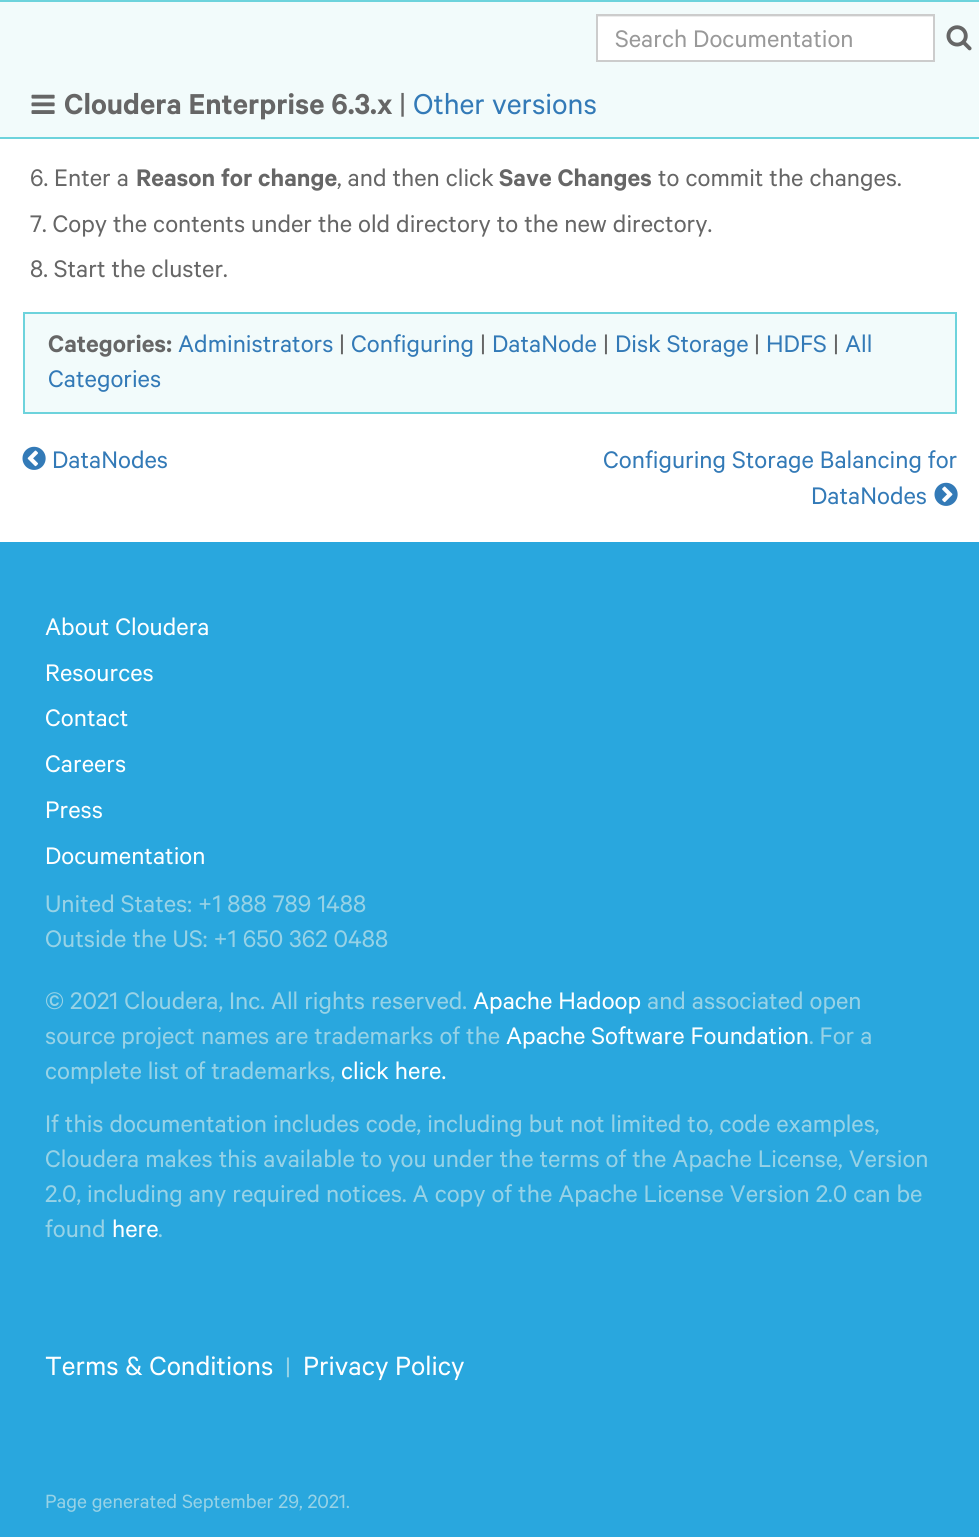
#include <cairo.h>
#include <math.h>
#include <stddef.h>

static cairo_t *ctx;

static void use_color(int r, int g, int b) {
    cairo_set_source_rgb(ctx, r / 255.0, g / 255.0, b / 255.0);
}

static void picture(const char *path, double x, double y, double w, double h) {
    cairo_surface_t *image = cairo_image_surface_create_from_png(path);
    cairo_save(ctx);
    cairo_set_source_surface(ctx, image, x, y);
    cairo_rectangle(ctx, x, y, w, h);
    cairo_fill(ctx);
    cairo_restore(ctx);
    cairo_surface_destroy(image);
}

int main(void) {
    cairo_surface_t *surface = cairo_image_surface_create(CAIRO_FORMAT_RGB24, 979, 1537);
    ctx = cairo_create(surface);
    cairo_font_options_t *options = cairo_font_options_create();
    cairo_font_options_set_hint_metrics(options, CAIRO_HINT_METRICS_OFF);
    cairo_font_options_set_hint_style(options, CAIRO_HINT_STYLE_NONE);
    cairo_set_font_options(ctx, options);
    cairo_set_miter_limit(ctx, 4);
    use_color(255, 255, 255);
    cairo_paint(ctx);
    use_color(242, 251, 251);
    cairo_rectangle(ctx, 0, 2, 979, 135);
    cairo_fill(ctx);
    use_color(109, 211, 220);
    cairo_rectangle(ctx, 0, 0, 979, 2);
    cairo_fill(ctx);
    cairo_rectangle(ctx, 0, 137, 979, 2);
    cairo_fill(ctx);
    use_color(255, 255, 255);
    cairo_rectangle(ctx, 598, 17, 335, 43);
    cairo_fill(ctx);
    use_color(236, 236, 236);
    cairo_rectangle(ctx, 597, 16, 336, 1);
    cairo_fill(ctx);
    cairo_rectangle(ctx, 597, 15, 337, 46);
    use_color(204, 204, 204);
    cairo_stroke(ctx);
    cairo_select_font_face(ctx, "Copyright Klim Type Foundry", CAIRO_FONT_SLANT_NORMAL, CAIRO_FONT_WEIGHT_NORMAL);
    cairo_set_font_size(ctx, 27);
    use_color(153, 153, 153);
    cairo_move_to(ctx, 615, 47);
    cairo_show_text(ctx, "Search Documentation");
    picture("img1.png", 946, 25, 26, 26);
    picture("img2.png", 31, 94, 24, 20);
    cairo_select_font_face(ctx, "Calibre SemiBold", CAIRO_FONT_SLANT_NORMAL, CAIRO_FONT_WEIGHT_NORMAL);
    cairo_set_font_size(ctx, 32.4);
    use_color(102, 102, 102);
    cairo_move_to(ctx, 64, 114);
    cairo_show_text(ctx, "Cloudera Enterprise 6.3.x");
    cairo_select_font_face(ctx, "Copyright Klim Type Foundry", CAIRO_FONT_SLANT_NORMAL, CAIRO_FONT_WEIGHT_NORMAL);
    cairo_move_to(ctx, 399, 114);
    cairo_show_text(ctx, "|");
    use_color(51, 122, 183);
    cairo_move_to(ctx, 413, 114);
    cairo_show_text(ctx, "Other versions");
    cairo_set_font_size(ctx, 27);
    use_color(102, 102, 102);
    cairo_move_to(ctx, 30, 186);
    cairo_show_text(ctx, "6. Enter a");
    cairo_select_font_face(ctx, "Calibre SemiBold", CAIRO_FONT_SLANT_NORMAL, CAIRO_FONT_WEIGHT_NORMAL);
    cairo_move_to(ctx, 136, 186);
    cairo_show_text(ctx, "Reason for change");
    cairo_select_font_face(ctx, "Copyright Klim Type Foundry", CAIRO_FONT_SLANT_NORMAL, CAIRO_FONT_WEIGHT_NORMAL);
    cairo_move_to(ctx, 337, 186);
    cairo_show_text(ctx, ", and then click");
    cairo_select_font_face(ctx, "Calibre SemiBold", CAIRO_FONT_SLANT_NORMAL, CAIRO_FONT_WEIGHT_NORMAL);
    cairo_move_to(ctx, 499, 186);
    cairo_show_text(ctx, "Save Changes");
    cairo_select_font_face(ctx, "Copyright Klim Type Foundry", CAIRO_FONT_SLANT_NORMAL, CAIRO_FONT_WEIGHT_NORMAL);
    cairo_move_to(ctx, 658, 186);
    cairo_show_text(ctx, "to commit the changes.");
    cairo_move_to(ctx, 30, 232);
    cairo_show_text(ctx, "7. Copy the contents under the old directory to the new directory.");
    cairo_move_to(ctx, 30, 277);
    cairo_show_text(ctx, "8. Start the cluster.");
    use_color(242, 251, 251);
    cairo_rectangle(ctx, 24, 313, 932, 100);
    cairo_fill_preserve(ctx);
    use_color(109, 211, 220);
    cairo_stroke(ctx);
    cairo_select_font_face(ctx, "Calibre SemiBold", CAIRO_FONT_SLANT_NORMAL, CAIRO_FONT_WEIGHT_NORMAL);
    use_color(102, 102, 102);
    cairo_move_to(ctx, 48, 352);
    cairo_show_text(ctx, "Categories:");
    cairo_select_font_face(ctx, "Copyright Klim Type Foundry", CAIRO_FONT_SLANT_NORMAL, CAIRO_FONT_WEIGHT_NORMAL);
    use_color(51, 122, 183);
    cairo_move_to(ctx, 178, 352);
    cairo_show_text(ctx, "Administrators");
    use_color(102, 102, 102);
    cairo_move_to(ctx, 339, 352);
    cairo_show_text(ctx, "|");
    use_color(51, 122, 183);
    cairo_move_to(ctx, 351, 352);
    cairo_show_text(ctx, "Configuring");
    use_color(102, 102, 102);
    cairo_move_to(ctx, 480, 352);
    cairo_show_text(ctx, "|");
    use_color(51, 122, 183);
    cairo_move_to(ctx, 492, 352);
    cairo_show_text(ctx, "DataNode");
    use_color(102, 102, 102);
    cairo_move_to(ctx, 603, 352);
    cairo_show_text(ctx, "|");
    use_color(51, 122, 183);
    cairo_move_to(ctx, 615, 352);
    cairo_show_text(ctx, "Disk Storage");
    use_color(102, 102, 102);
    cairo_move_to(ctx, 754, 352);
    cairo_show_text(ctx, "|");
    use_color(51, 122, 183);
    cairo_move_to(ctx, 766, 352);
    cairo_show_text(ctx, "HDFS");
    use_color(102, 102, 102);
    cairo_move_to(ctx, 833, 352);
    cairo_show_text(ctx, "|");
    use_color(51, 122, 183);
    cairo_move_to(ctx, 845, 352);
    cairo_show_text(ctx, "All");
    cairo_move_to(ctx, 48, 387);
    cairo_show_text(ctx, "Categories");
    picture("img3.png", 22, 446, 24, 24);
    cairo_move_to(ctx, 52, 468);
    cairo_show_text(ctx, "DataNodes");
    cairo_move_to(ctx, 603, 468);
    cairo_show_text(ctx, "Configuring Storage Balancing for");
    cairo_move_to(ctx, 811, 504);
    cairo_show_text(ctx, "DataNodes");
    picture("img4.png", 934, 482, 24, 24);
    use_color(41, 167, 222);
    cairo_rectangle(ctx, 0, 542, 979, 995);
    cairo_fill(ctx);
    use_color(255, 255, 255);
    cairo_move_to(ctx, 45, 635);
    cairo_show_text(ctx, "About Cloudera");
    cairo_move_to(ctx, 45, 681);
    cairo_show_text(ctx, "Resources");
    cairo_move_to(ctx, 45, 726);
    cairo_show_text(ctx, "Contact");
    cairo_move_to(ctx, 45, 772);
    cairo_show_text(ctx, "Careers");
    cairo_move_to(ctx, 45, 818);
    cairo_show_text(ctx, "Press");
    cairo_move_to(ctx, 45, 864);
    cairo_show_text(ctx, "Documentation");
    use_color(151, 210, 230);
    cairo_move_to(ctx, 45, 912);
    cairo_show_text(ctx, "United States: +1 888 789 1488");
    cairo_move_to(ctx, 45, 947);
    cairo_show_text(ctx, "Outside the US: +1 650 362 0488");
    cairo_move_to(ctx, 45, 1009);
    cairo_show_text(ctx, "© 2021 Cloudera, Inc. All rights reserved.");
    use_color(255, 255, 255);
    cairo_move_to(ctx, 473, 1009);
    cairo_show_text(ctx, "Apache Hadoop");
    use_color(151, 210, 230);
    cairo_move_to(ctx, 647, 1009);
    cairo_show_text(ctx, "and associated open");
    cairo_move_to(ctx, 45, 1044);
    cairo_show_text(ctx, "source project names are trademarks of the");
    use_color(255, 255, 255);
    cairo_move_to(ctx, 506, 1044);
    cairo_show_text(ctx, "Apache Software Foundation");
    use_color(151, 210, 230);
    cairo_move_to(ctx, 809, 1044);
    cairo_show_text(ctx, ". For a");
    cairo_move_to(ctx, 45, 1079);
    cairo_show_text(ctx, "complete list of trademarks,");
    use_color(255, 255, 255);
    cairo_move_to(ctx, 341, 1079);
    cairo_show_text(ctx, "click here.");
    use_color(151, 210, 230);
    cairo_move_to(ctx, 45, 1132);
    cairo_show_text(ctx, "If this documentation includes code, including but not limited to, code examples,");
    cairo_move_to(ctx, 45, 1167);
    cairo_show_text(ctx, "Cloudera makes this available to you under the terms of the Apache License, Version");
    cairo_move_to(ctx, 45, 1202);
    cairo_show_text(ctx, "2.0, including any required notices. A copy of the Apache License Version 2.0 can be");
    cairo_move_to(ctx, 45, 1237);
    cairo_show_text(ctx, "found");
    use_color(255, 255, 255);
    cairo_move_to(ctx, 112, 1237);
    cairo_show_text(ctx, "here");
    use_color(151, 210, 230);
    cairo_move_to(ctx, 158, 1237);
    cairo_show_text(ctx, ".");
    cairo_set_font_size(ctx, 29.75);
    use_color(255, 255, 255);
    cairo_move_to(ctx, 45, 1375);
    cairo_show_text(ctx, "Terms & Conditions");
    cairo_set_font_size(ctx, 27);
    use_color(151, 210, 230);
    cairo_move_to(ctx, 285, 1375);
    cairo_show_text(ctx, "|");
    cairo_set_font_size(ctx, 29.75);
    use_color(255, 255, 255);
    cairo_move_to(ctx, 303, 1375);
    cairo_show_text(ctx, "Privacy Policy");
    cairo_set_font_size(ctx, 21.6);
    use_color(151, 210, 230);
    cairo_move_to(ctx, 45, 1508);
    cairo_show_text(ctx, "Page generated September 29, 2021.");
    cairo_surface_write_to_png(surface, "result.png");
    cairo_font_options_destroy(options);
    cairo_destroy(ctx);
    cairo_surface_destroy(surface);
    return 0;
}
